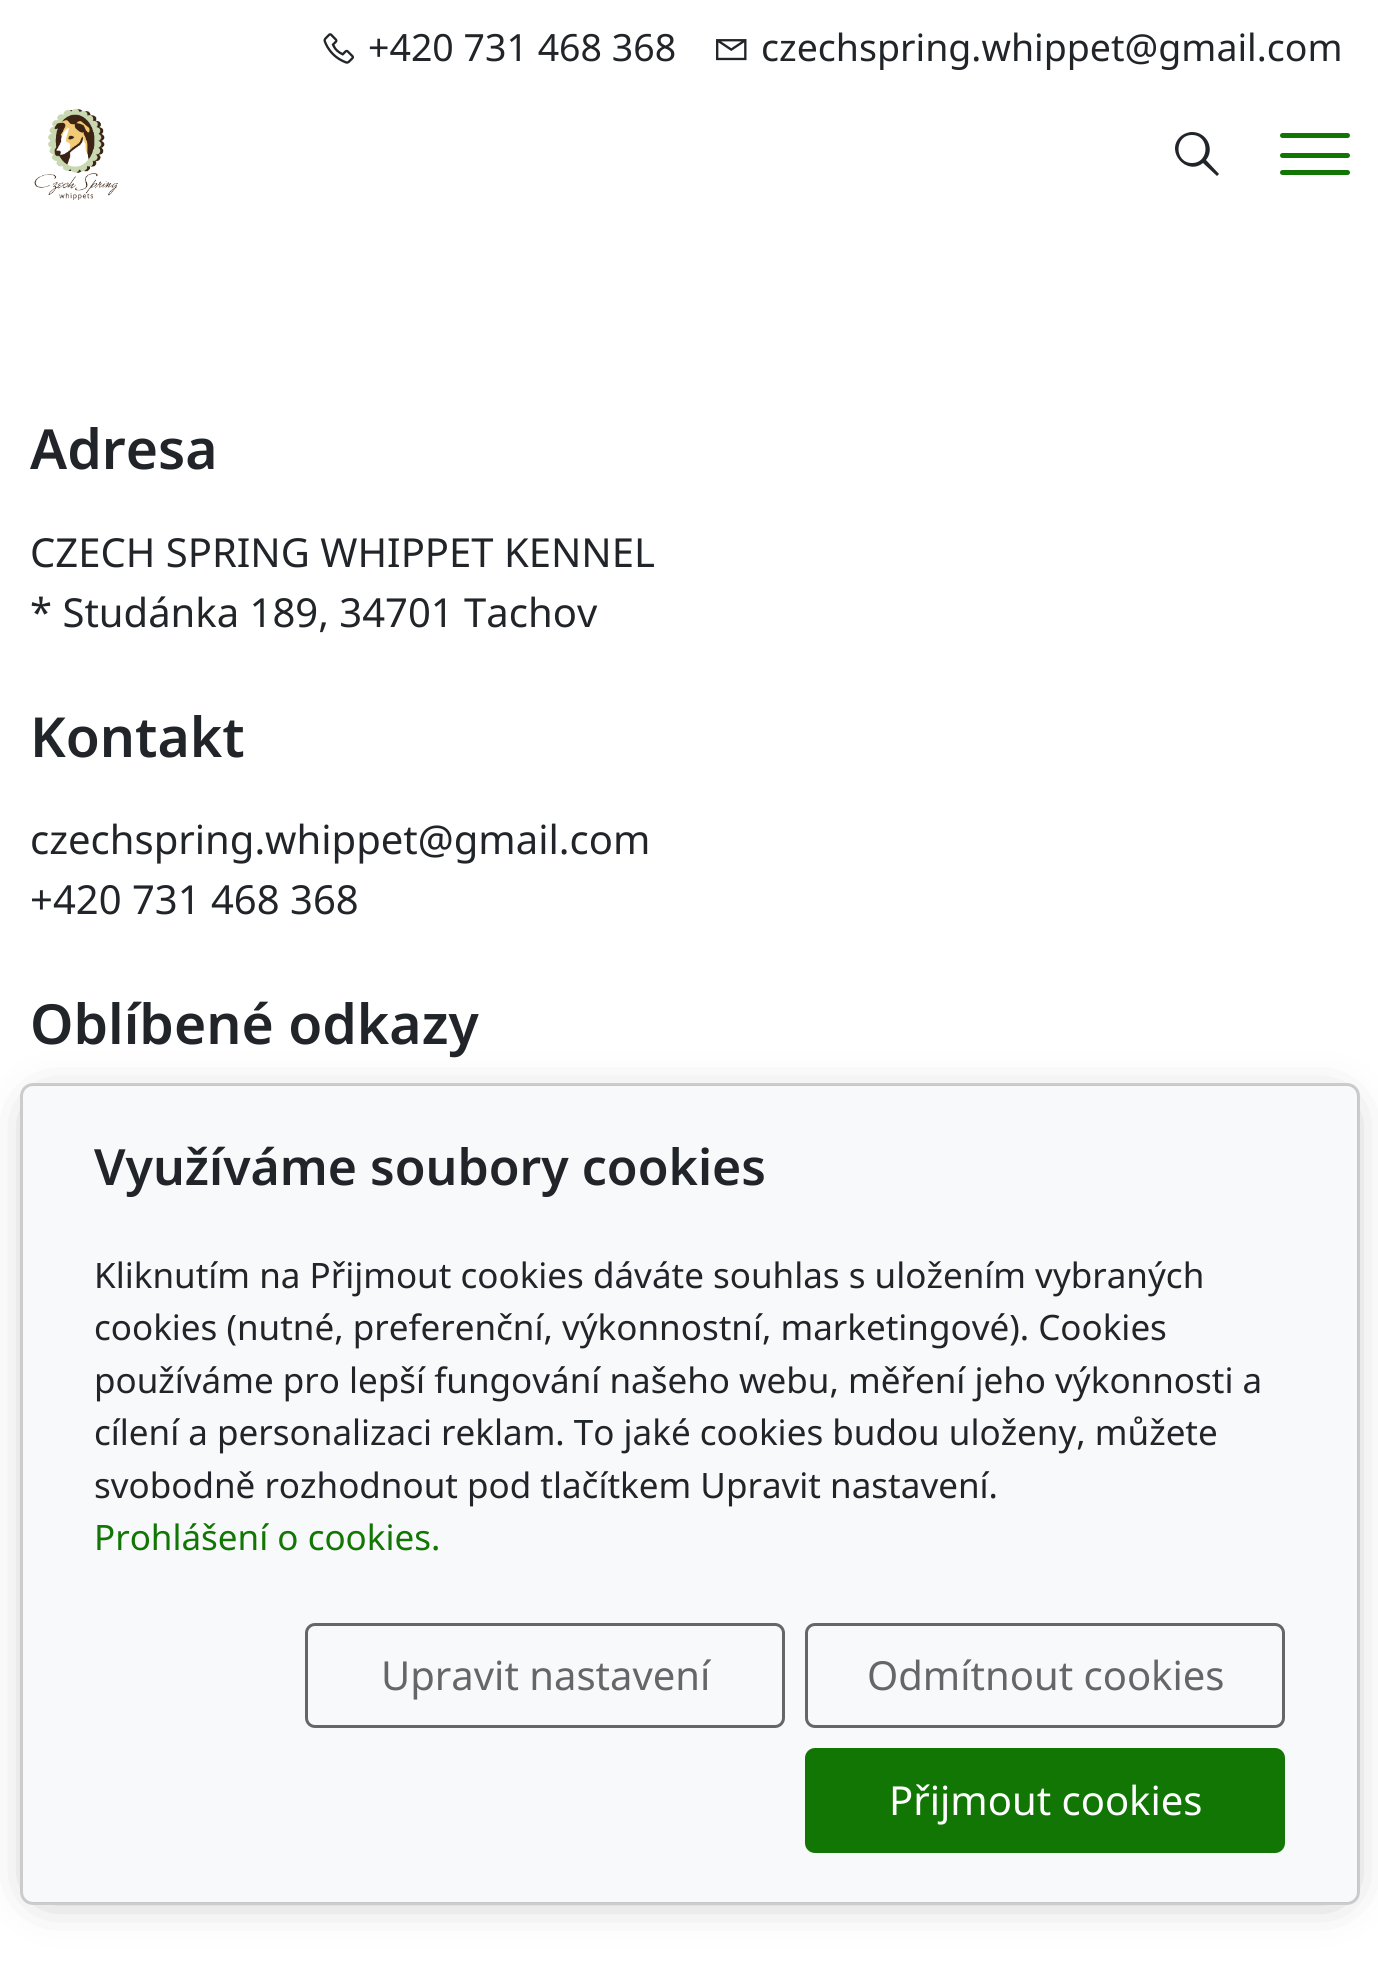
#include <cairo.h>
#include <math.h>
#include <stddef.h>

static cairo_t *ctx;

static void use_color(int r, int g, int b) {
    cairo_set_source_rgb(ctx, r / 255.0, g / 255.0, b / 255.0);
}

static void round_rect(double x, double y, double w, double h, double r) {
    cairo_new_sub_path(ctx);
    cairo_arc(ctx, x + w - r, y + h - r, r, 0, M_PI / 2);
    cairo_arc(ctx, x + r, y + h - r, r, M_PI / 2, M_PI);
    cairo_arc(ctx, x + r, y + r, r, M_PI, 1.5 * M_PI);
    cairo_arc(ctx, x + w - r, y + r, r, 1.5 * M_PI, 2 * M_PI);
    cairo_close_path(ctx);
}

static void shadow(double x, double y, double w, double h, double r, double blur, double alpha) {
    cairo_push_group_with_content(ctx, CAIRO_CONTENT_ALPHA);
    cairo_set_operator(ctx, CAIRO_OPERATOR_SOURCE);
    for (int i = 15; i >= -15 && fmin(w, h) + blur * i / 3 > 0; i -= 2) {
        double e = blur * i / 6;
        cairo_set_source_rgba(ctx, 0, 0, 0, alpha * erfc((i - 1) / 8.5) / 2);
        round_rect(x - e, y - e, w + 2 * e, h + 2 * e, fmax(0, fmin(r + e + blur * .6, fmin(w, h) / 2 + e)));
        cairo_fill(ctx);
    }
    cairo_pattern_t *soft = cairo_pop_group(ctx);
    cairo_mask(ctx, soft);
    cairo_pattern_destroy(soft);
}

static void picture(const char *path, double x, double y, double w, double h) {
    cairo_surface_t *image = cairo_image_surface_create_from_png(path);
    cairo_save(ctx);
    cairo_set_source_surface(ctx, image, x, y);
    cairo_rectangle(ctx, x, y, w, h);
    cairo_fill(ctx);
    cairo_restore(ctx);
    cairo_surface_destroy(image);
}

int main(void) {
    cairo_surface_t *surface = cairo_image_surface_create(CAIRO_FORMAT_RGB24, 1378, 1963);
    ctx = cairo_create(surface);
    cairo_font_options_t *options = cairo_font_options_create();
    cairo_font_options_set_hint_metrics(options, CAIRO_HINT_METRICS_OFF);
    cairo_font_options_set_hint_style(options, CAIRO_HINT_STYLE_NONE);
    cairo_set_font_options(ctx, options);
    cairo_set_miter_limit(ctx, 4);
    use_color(255, 255, 255);
    cairo_paint(ctx);
    picture("img1.png", 323, 33, 31, 31);
    cairo_select_font_face(ctx, "Noto Sans", CAIRO_FONT_SLANT_NORMAL, CAIRO_FONT_WEIGHT_NORMAL);
    cairo_set_font_size(ctx, 37.5);
    use_color(33, 37, 41);
    cairo_move_to(ctx, 368, 61);
    cairo_show_text(ctx, "+420 731 468 368");
    picture("img2.png", 716, 39, 31, 22);
    cairo_move_to(ctx, 761, 61);
    cairo_show_text(ctx, "czechspring.whippet@gmail.com");
    picture("img3.png", 34, 109, 84, 91);
    cairo_new_path(ctx);
    cairo_move_to(ctx, 1192, 132);
    cairo_curve_to(ctx, 1207, 132, 1215, 149, 1206, 160);
    cairo_line_to(ctx, 1219, 174);
    cairo_line_to(ctx, 1217, 176);
    cairo_line_to(ctx, 1203, 163);
    cairo_curve_to(ctx, 1187, 176, 1165, 152, 1180, 137);
    cairo_curve_to(ctx, 1183, 134, 1188, 132, 1192, 132);
    cairo_close_path(ctx);
    cairo_move_to(ctx, 1192, 135);
    cairo_curve_to(ctx, 1174, 135, 1174, 163, 1192, 163);
    cairo_curve_to(ctx, 1210, 163, 1210, 135, 1192, 135);
    cairo_close_path(ctx);
    cairo_fill(ctx);
    use_color(18, 118, 4);
    round_rect(1280, 133, 70, 5, 2.5);
    cairo_fill(ctx);
    round_rect(1280, 153, 70, 5, 2.5);
    cairo_fill(ctx);
    round_rect(1280, 170, 70, 5, 2.5);
    cairo_fill(ctx);
    cairo_select_font_face(ctx, "Noto Sans SemiBold", CAIRO_FONT_SLANT_NORMAL, CAIRO_FONT_WEIGHT_NORMAL);
    cairo_set_font_size(ctx, 55.25);
    use_color(33, 37, 41);
    cairo_move_to(ctx, 30, 469);
    cairo_show_text(ctx, "Adresa");
    cairo_select_font_face(ctx, "Noto Sans", CAIRO_FONT_SLANT_NORMAL, CAIRO_FONT_WEIGHT_NORMAL);
    cairo_set_font_size(ctx, 40);
    cairo_move_to(ctx, 30, 567);
    cairo_show_text(ctx, "CZECH SPRING WHIPPET KENNEL");
    cairo_move_to(ctx, 30, 627);
    cairo_show_text(ctx, "* Studánka 189, 34701 Tachov");
    cairo_select_font_face(ctx, "Noto Sans SemiBold", CAIRO_FONT_SLANT_NORMAL, CAIRO_FONT_WEIGHT_NORMAL);
    cairo_set_font_size(ctx, 55.25);
    cairo_move_to(ctx, 30, 757);
    cairo_show_text(ctx, "Kontakt");
    cairo_select_font_face(ctx, "Noto Sans", CAIRO_FONT_SLANT_NORMAL, CAIRO_FONT_WEIGHT_NORMAL);
    cairo_set_font_size(ctx, 40);
    cairo_move_to(ctx, 30, 854);
    cairo_show_text(ctx, "czechspring.whippet@gmail.com");
    cairo_move_to(ctx, 30, 914);
    cairo_show_text(ctx, "+420 731 468 368");
    cairo_select_font_face(ctx, "Noto Sans SemiBold", CAIRO_FONT_SLANT_NORMAL, CAIRO_FONT_WEIGHT_NORMAL);
    cairo_set_font_size(ctx, 55.25);
    cairo_move_to(ctx, 30, 1044);
    cairo_show_text(ctx, "Oblíbené odkazy");
    cairo_save(ctx);
    cairo_set_fill_rule(ctx, CAIRO_FILL_RULE_EVEN_ODD);
    cairo_new_path(ctx);
    cairo_move_to(ctx, 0, 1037);
    cairo_line_to(ctx, 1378, 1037);
    cairo_line_to(ctx, 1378, 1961);
    cairo_line_to(ctx, 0, 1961);
    cairo_close_path(ctx);
    cairo_move_to(ctx, 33, 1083);
    cairo_line_to(ctx, 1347, 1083);
    cairo_curve_to(ctx, 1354, 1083, 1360, 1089, 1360, 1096);
    cairo_line_to(ctx, 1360, 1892);
    cairo_curve_to(ctx, 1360, 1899, 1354, 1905, 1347, 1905);
    cairo_line_to(ctx, 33, 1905);
    cairo_curve_to(ctx, 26, 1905, 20, 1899, 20, 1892);
    cairo_line_to(ctx, 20, 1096);
    cairo_curve_to(ctx, 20, 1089, 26, 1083, 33, 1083);
    cairo_close_path(ctx);
    cairo_clip(ctx);
    use_color(0, 0, 0);
    shadow(45, 1113, 1290, 772, 0, 25, 0.5);
    cairo_restore(ctx);
    use_color(248, 249, 250);
    round_rect(23, 1085, 1335, 818, 10);
    cairo_fill(ctx);
    round_rect(21.5, 1084.5, 1337, 819, 11.5);
    cairo_set_source_rgba(ctx, 0, 0, 0, 0.2);
    cairo_set_line_width(ctx, 3);
    cairo_stroke(ctx);
    cairo_set_font_size(ctx, 50);
    use_color(33, 37, 41);
    cairo_move_to(ctx, 94, 1185);
    cairo_show_text(ctx, "Využíváme soubory cookies");
    cairo_select_font_face(ctx, "Noto Sans", CAIRO_FONT_SLANT_NORMAL, CAIRO_FONT_WEIGHT_NORMAL);
    cairo_set_font_size(ctx, 35);
    cairo_move_to(ctx, 94, 1288);
    cairo_show_text(ctx, "Kliknutím na Přijmout cookies dáváte souhlas s uložením vybraných");
    cairo_move_to(ctx, 94, 1340);
    cairo_show_text(ctx, "cookies (nutné, preferenční, výkonnostní, marketingové). Cookies");
    cairo_move_to(ctx, 94, 1393);
    cairo_show_text(ctx, "používáme pro lepší fungování našeho webu, měření jeho výkonnosti a");
    cairo_move_to(ctx, 94, 1445);
    cairo_show_text(ctx, "cílení a personalizaci reklam. To jaké cookies budou uloženy, můžete");
    cairo_move_to(ctx, 94, 1498);
    cairo_show_text(ctx, "svobodně rozhodnout pod tlačítkem Upravit nastavení.");
    use_color(18, 118, 4);
    cairo_move_to(ctx, 94, 1550);
    cairo_show_text(ctx, "Prohlášení o cookies.");
    round_rect(306.5, 1624.5, 477, 102, 8.5);
    use_color(100, 102, 105);
    cairo_stroke(ctx);
    cairo_set_font_size(ctx, 40);
    cairo_move_to(ctx, 381, 1690);
    cairo_show_text(ctx, "Upravit nastavení");
    round_rect(806.5, 1624.5, 477, 102, 8.5);
    cairo_stroke(ctx);
    cairo_move_to(ctx, 867, 1690);
    cairo_show_text(ctx, "Odmítnout cookies");
    use_color(18, 118, 4);
    round_rect(806.5, 1749.5, 477, 102, 8.5);
    cairo_fill_preserve(ctx);
    cairo_stroke(ctx);
    use_color(255, 255, 255);
    cairo_move_to(ctx, 889, 1815);
    cairo_show_text(ctx, "Přijmout cookies");
    cairo_surface_write_to_png(surface, "result.png");
    cairo_font_options_destroy(options);
    cairo_destroy(ctx);
    cairo_surface_destroy(surface);
    return 0;
}
